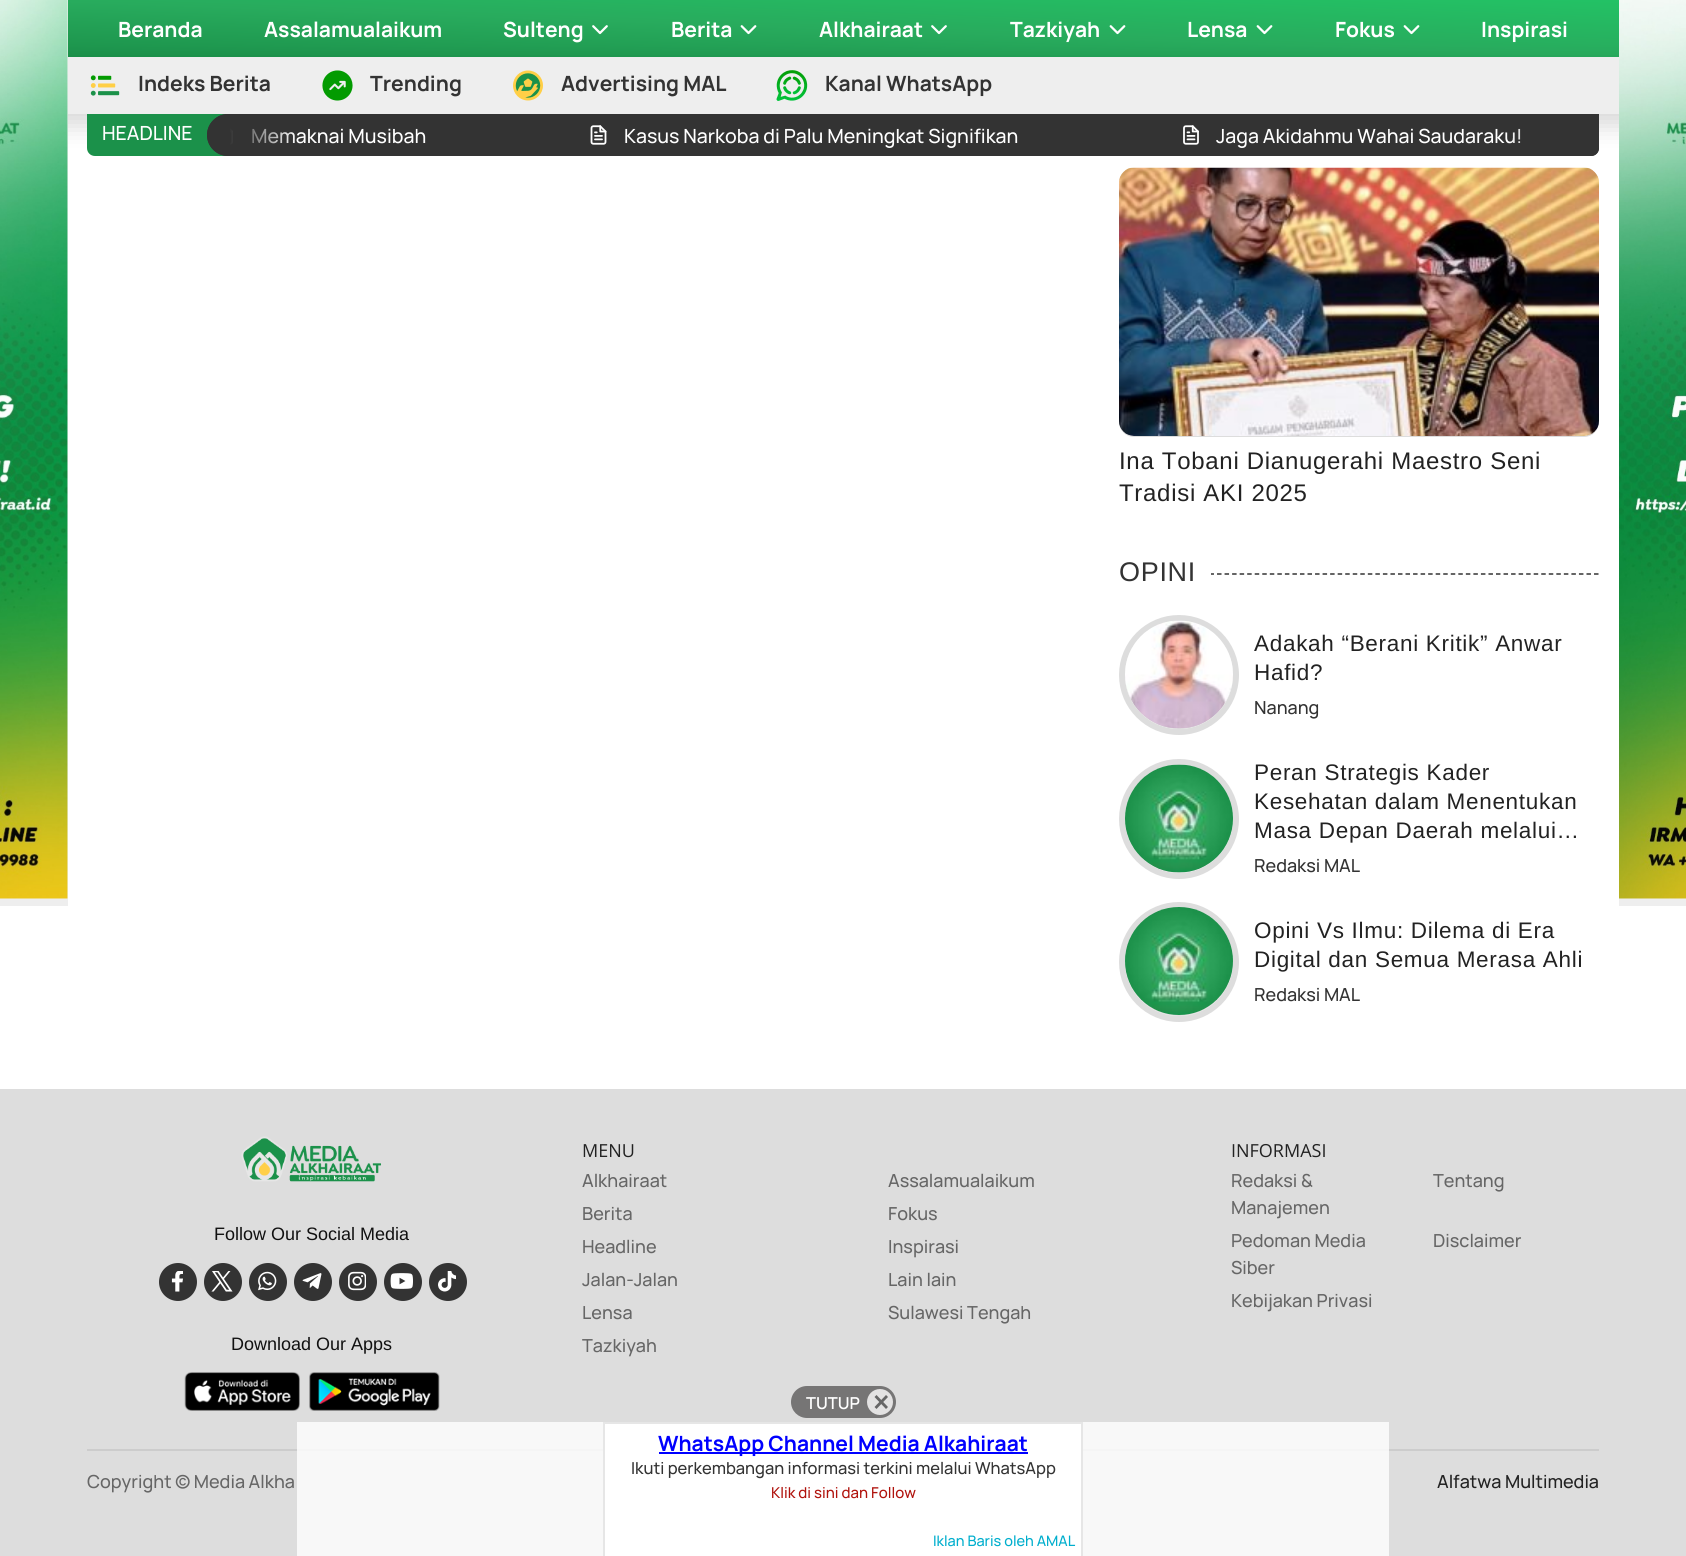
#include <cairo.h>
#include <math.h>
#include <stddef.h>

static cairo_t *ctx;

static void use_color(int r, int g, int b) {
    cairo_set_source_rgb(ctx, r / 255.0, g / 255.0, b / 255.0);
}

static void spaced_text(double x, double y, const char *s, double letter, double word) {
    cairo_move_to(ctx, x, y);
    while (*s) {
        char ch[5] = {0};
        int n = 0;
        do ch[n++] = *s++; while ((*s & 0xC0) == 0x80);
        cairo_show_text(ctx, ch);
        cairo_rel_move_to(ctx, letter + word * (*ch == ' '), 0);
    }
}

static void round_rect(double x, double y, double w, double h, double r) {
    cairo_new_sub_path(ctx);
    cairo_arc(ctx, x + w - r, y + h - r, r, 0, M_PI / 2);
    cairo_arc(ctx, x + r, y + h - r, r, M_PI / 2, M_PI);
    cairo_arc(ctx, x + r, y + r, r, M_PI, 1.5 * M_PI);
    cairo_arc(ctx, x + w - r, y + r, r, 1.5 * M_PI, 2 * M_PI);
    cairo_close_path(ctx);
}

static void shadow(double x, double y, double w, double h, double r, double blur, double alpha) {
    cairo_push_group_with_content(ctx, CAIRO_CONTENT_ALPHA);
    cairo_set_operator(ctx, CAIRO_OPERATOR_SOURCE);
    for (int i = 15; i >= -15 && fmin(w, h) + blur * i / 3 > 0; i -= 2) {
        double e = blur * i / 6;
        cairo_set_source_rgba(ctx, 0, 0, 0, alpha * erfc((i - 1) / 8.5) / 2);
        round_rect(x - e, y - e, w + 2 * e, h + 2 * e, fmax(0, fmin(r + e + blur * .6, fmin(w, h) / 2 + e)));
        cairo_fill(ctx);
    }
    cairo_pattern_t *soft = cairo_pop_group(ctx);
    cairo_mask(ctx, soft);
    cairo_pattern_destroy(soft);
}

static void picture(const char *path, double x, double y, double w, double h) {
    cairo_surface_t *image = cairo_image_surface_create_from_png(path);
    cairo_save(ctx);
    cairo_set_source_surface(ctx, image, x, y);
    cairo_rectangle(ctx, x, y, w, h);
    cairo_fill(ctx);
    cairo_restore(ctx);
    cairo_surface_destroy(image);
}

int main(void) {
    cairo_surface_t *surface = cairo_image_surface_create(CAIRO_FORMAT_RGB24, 1686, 1556);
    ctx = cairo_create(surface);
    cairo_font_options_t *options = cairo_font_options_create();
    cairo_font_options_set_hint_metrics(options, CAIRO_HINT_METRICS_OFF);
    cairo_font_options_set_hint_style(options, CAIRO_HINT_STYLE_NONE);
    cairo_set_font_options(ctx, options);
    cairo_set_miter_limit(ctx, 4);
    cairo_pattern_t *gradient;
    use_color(255, 255, 255);
    cairo_paint(ctx);
    gradient = cairo_pattern_create_linear(841, 85, 845, -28);
    cairo_pattern_add_color_stop_rgba(gradient, 0, 0.106, 0.569, 0.29, 1);
    cairo_pattern_add_color_stop_rgba(gradient, 0.5, 0.157, 0.671, 0.365, 1);
    cairo_pattern_add_color_stop_rgba(gradient, 1, 0.137, 0.761, 0.396, 1);
    cairo_set_source(ctx, gradient);
    cairo_pattern_destroy(gradient);
    cairo_rectangle(ctx, 68, 0, 1551, 57);
    cairo_fill(ctx);
    use_color(0, 0, 0);
    shadow(0, 69, 1686, 57, 0, 12, 0.15);
    use_color(238, 238, 238);
    cairo_rectangle(ctx, 0, 0, 68, 906);
    cairo_fill(ctx);
    picture("img1.png", 0, 0, 68, 899);
    cairo_select_font_face(ctx, "Manrope", CAIRO_FONT_SLANT_NORMAL, CAIRO_FONT_WEIGHT_BOLD);
    cairo_set_font_size(ctx, 21);
    use_color(255, 255, 255);
    cairo_move_to(ctx, 118, 37);
    cairo_show_text(ctx, "Beranda");
    cairo_move_to(ctx, 264, 37);
    cairo_show_text(ctx, "Assalamualaikum");
    cairo_move_to(ctx, 503, 37);
    cairo_show_text(ctx, "Sulteng");
    picture("img2.png", 592, 25, 16, 10);
    cairo_move_to(ctx, 671, 37);
    cairo_show_text(ctx, "Berita");
    picture("img3.png", 740, 25, 17, 10);
    cairo_move_to(ctx, 819, 37);
    cairo_show_text(ctx, "Alkhairaat");
    picture("img4.png", 931, 25, 16, 10);
    cairo_move_to(ctx, 1010, 37);
    cairo_show_text(ctx, "Tazkiyah");
    picture("img5.png", 1109, 25, 17, 10);
    cairo_move_to(ctx, 1187, 37);
    cairo_show_text(ctx, "Lensa");
    picture("img6.png", 1256, 25, 17, 10);
    cairo_move_to(ctx, 1335, 37);
    cairo_show_text(ctx, "Fokus");
    picture("img7.png", 1403, 25, 17, 10);
    cairo_move_to(ctx, 1481, 37);
    cairo_show_text(ctx, "Inspirasi");
    use_color(238, 238, 238);
    cairo_rectangle(ctx, 68, 57, 1551, 57);
    cairo_fill(ctx);
    picture("img8.png", 90, 75, 30, 21);
    use_color(51, 51, 51);
    cairo_move_to(ctx, 138, 91);
    cairo_show_text(ctx, "Indeks Berita");
    picture("img9.png", 322, 70, 31, 31);
    cairo_move_to(ctx, 370, 91);
    cairo_show_text(ctx, "Trending");
    picture("img10.png", 513, 70, 30, 31);
    cairo_move_to(ctx, 561, 91);
    cairo_show_text(ctx, "Advertising MAL");
    picture("img11.png", 776, 70, 32, 31);
    cairo_move_to(ctx, 825, 91);
    cairo_show_text(ctx, "Kanal WhatsApp");
    use_color(27, 145, 74);
    cairo_new_path(ctx);
    cairo_move_to(ctx, 87, 114);
    cairo_line_to(ctx, 237, 114);
    cairo_line_to(ctx, 237, 156);
    cairo_line_to(ctx, 95, 156);
    cairo_curve_to(ctx, 90.5, 156, 87, 152.5, 87, 148);
    cairo_close_path(ctx);
    cairo_fill(ctx);
    cairo_select_font_face(ctx, "Manrope Medium", CAIRO_FONT_SLANT_NORMAL, CAIRO_FONT_WEIGHT_NORMAL);
    cairo_set_font_size(ctx, 19.5);
    use_color(255, 255, 255);
    cairo_move_to(ctx, 102, 140);
    cairo_show_text(ctx, "HEADLINE");
    use_color(51, 51, 51);
    cairo_new_path(ctx);
    cairo_move_to(ctx, 228, 114);
    cairo_line_to(ctx, 1599, 114);
    cairo_line_to(ctx, 1599, 148);
    cairo_curve_to(ctx, 1599, 152.5, 1595.5, 156, 1591, 156);
    cairo_line_to(ctx, 228, 156);
    cairo_curve_to(ctx, 216.5, 156, 207, 146.5, 207, 135);
    cairo_curve_to(ctx, 207, 123.5, 216.5, 114, 228, 114);
    cairo_close_path(ctx);
    cairo_fill(ctx);
    picture("img12.png", 230, 128, 3, 17);
    use_color(255, 255, 255);
    cairo_move_to(ctx, 251, 143);
    cairo_show_text(ctx, "Memaknai Musibah");
    gradient = cairo_pattern_create_linear(207, 135, 297, 135);
    cairo_pattern_add_color_stop_rgba(gradient, 0.25, 0.2, 0.2, 0.2, 1);
    cairo_pattern_add_color_stop_rgba(gradient, 1, 0.2, 0.2, 0.2, 0);
    cairo_set_source(ctx, gradient);
    cairo_pattern_destroy(gradient);
    cairo_new_path(ctx);
    cairo_move_to(ctx, 228, 114);
    cairo_line_to(ctx, 297, 114);
    cairo_line_to(ctx, 297, 156);
    cairo_line_to(ctx, 228, 156);
    cairo_curve_to(ctx, 216.5, 156, 207, 146.5, 207, 135);
    cairo_curve_to(ctx, 207, 123.5, 216.5, 114, 228, 114);
    cairo_close_path(ctx);
    cairo_fill(ctx);
    use_color(255, 255, 255);
    cairo_move_to(ctx, 1216, 143);
    cairo_show_text(ctx, "Jaga Akidahmu Wahai Saudaraku!");
    gradient = cairo_pattern_create_linear(1599, 135, 1509, 135);
    cairo_pattern_add_color_stop_rgba(gradient, 0.25, 0.2, 0.2, 0.2, 1);
    cairo_pattern_add_color_stop_rgba(gradient, 1, 0.2, 0.2, 0.2, 0);
    cairo_set_source(ctx, gradient);
    cairo_pattern_destroy(gradient);
    cairo_new_path(ctx);
    cairo_move_to(ctx, 1509, 114);
    cairo_line_to(ctx, 1599, 114);
    cairo_line_to(ctx, 1599, 148);
    cairo_curve_to(ctx, 1599, 152.5, 1595.5, 156, 1591, 156);
    cairo_line_to(ctx, 1509, 156);
    cairo_close_path(ctx);
    cairo_fill(ctx);
    picture("img13.png", 590, 125, 17, 20);
    use_color(255, 255, 255);
    cairo_move_to(ctx, 624, 143);
    cairo_show_text(ctx, "Kasus Narkoba di Palu Meningkat Signifikan");
    picture("img14.png", 1183, 125, 16, 20);
    use_color(238, 238, 238);
    cairo_rectangle(ctx, 1619, 898, 67, 8);
    cairo_fill(ctx);
    picture("img15.png", 1619, 0, 67, 899);
    use_color(221, 221, 221);
    round_rect(1119, 168, 480, 269, 15);
    cairo_fill(ctx);
    picture("img16.png", 1119, 167, 480, 269);
    cairo_select_font_face(ctx, "Liberation Sans", CAIRO_FONT_SLANT_NORMAL, CAIRO_FONT_WEIGHT_NORMAL);
    cairo_set_font_size(ctx, 24);
    use_color(34, 34, 34);
    spaced_text(1119, 469, "Ina Tobani Dianugerahi Maestro Seni", 0.7, 0);
    spaced_text(1119, 501, "Tradisi AKI 2025", 0.7, 0);
    cairo_new_path(ctx);
    cairo_move_to(ctx, 1119, 574);
    cairo_line_to(ctx, 1599, 574);
    use_color(51, 51, 51);
    cairo_set_line_width(ctx, 1.5);
    cairo_set_dash(ctx, (double[]){4.5, 3.04}, 2, 0);
    cairo_stroke(ctx);
    use_color(255, 255, 255);
    cairo_rectangle(ctx, 1119, 573, 92, 2);
    cairo_fill(ctx);
    cairo_set_font_size(ctx, 27);
    use_color(51, 51, 51);
    spaced_text(1119, 581, "OPINI", 0.7, 0);
    cairo_new_path(ctx);
    cairo_arc(ctx, 1179, 675, 57, 0, 2 * M_PI);
    use_color(221, 221, 221);
    cairo_set_line_width(ctx, 6);
    cairo_set_dash(ctx, NULL, 0, 0);
    cairo_stroke(ctx);
    cairo_arc(ctx, 1179, 675, 54, 0, 2 * M_PI);
    cairo_fill(ctx);
    picture("img17.png", 1125, 620, 108, 109);
    cairo_set_font_size(ctx, 22.5);
    use_color(34, 34, 34);
    spaced_text(1254, 651, "Adakah “Berani Kritik” Anwar", 0.7, 0);
    spaced_text(1254, 680, "Hafid?", 0.7, 0);
    cairo_select_font_face(ctx, "Manrope Medium", CAIRO_FONT_SLANT_NORMAL, CAIRO_FONT_WEIGHT_NORMAL);
    cairo_set_font_size(ctx, 18);
    use_color(51, 51, 51);
    cairo_move_to(ctx, 1254, 714);
    cairo_show_text(ctx, "Nanang");
    cairo_new_path(ctx);
    cairo_arc(ctx, 1179, 819, 57, 0, 2 * M_PI);
    use_color(221, 221, 221);
    cairo_stroke(ctx);
    cairo_arc(ctx, 1179, 819, 54, 0, 2 * M_PI);
    cairo_fill(ctx);
    picture("img18.png", 1125, 764, 108, 109);
    cairo_select_font_face(ctx, "Liberation Sans", CAIRO_FONT_SLANT_NORMAL, CAIRO_FONT_WEIGHT_NORMAL);
    cairo_set_font_size(ctx, 22.5);
    use_color(34, 34, 34);
    spaced_text(1254, 780, "Peran Strategis Kader", 0.7, 0);
    spaced_text(1254, 809, "Kesehatan dalam Menentukan", 0.7, 0);
    spaced_text(1254, 838, "Masa Depan Daerah melalui…", 0.7, 0);
    cairo_select_font_face(ctx, "Manrope Medium", CAIRO_FONT_SLANT_NORMAL, CAIRO_FONT_WEIGHT_NORMAL);
    cairo_set_font_size(ctx, 18);
    use_color(51, 51, 51);
    cairo_move_to(ctx, 1254, 872);
    cairo_show_text(ctx, "Redaksi MAL");
    cairo_new_path(ctx);
    cairo_arc(ctx, 1179, 962, 57, 0, 2 * M_PI);
    use_color(221, 221, 221);
    cairo_stroke(ctx);
    cairo_arc(ctx, 1179, 962, 54, 0, 2 * M_PI);
    cairo_fill(ctx);
    picture("img19.png", 1125, 907, 108, 108);
    cairo_select_font_face(ctx, "Liberation Sans", CAIRO_FONT_SLANT_NORMAL, CAIRO_FONT_WEIGHT_NORMAL);
    cairo_set_font_size(ctx, 22.5);
    use_color(34, 34, 34);
    spaced_text(1254, 938, "Opini Vs Ilmu: Dilema di Era", 0.7, 0);
    spaced_text(1254, 967, "Digital dan Semua Merasa Ahli", 0.7, 0);
    cairo_select_font_face(ctx, "Manrope Medium", CAIRO_FONT_SLANT_NORMAL, CAIRO_FONT_WEIGHT_NORMAL);
    cairo_set_font_size(ctx, 18);
    use_color(51, 51, 51);
    cairo_move_to(ctx, 1254, 1001);
    cairo_show_text(ctx, "Redaksi MAL");
    use_color(221, 221, 221);
    cairo_rectangle(ctx, 0, 1089, 1686, 467);
    cairo_fill(ctx);
    picture("img20.png", 241, 1136, 140, 46);
    cairo_select_font_face(ctx, "Liberation Sans", CAIRO_FONT_SLANT_NORMAL, CAIRO_FONT_WEIGHT_NORMAL);
    use_color(17, 17, 17);
    cairo_move_to(ctx, 214, 1240);
    cairo_show_text(ctx, "Follow Our Social Media");
    use_color(51, 51, 51);
    cairo_new_path(ctx);
    cairo_arc(ctx, 178, 1282, 19, 0, 2 * M_PI);
    cairo_fill(ctx);
    picture("img21.png", 171, 1271, 12, 21);
    cairo_arc(ctx, 223, 1282, 19, 0, 2 * M_PI);
    cairo_fill(ctx);
    picture("img22.png", 211, 1271, 22, 21);
    cairo_arc(ctx, 268, 1282, 19, 0, 2 * M_PI);
    cairo_fill(ctx);
    picture("img23.png", 258, 1271, 19, 20);
    cairo_arc(ctx, 313, 1282, 19, 0, 2 * M_PI);
    cairo_fill(ctx);
    picture("img24.png", 302, 1273, 20, 16);
    cairo_arc(ctx, 358, 1282, 19, 0, 2 * M_PI);
    cairo_fill(ctx);
    picture("img25.png", 348, 1271, 18, 20);
    cairo_arc(ctx, 403, 1282, 19, 0, 2 * M_PI);
    cairo_fill(ctx);
    picture("img26.png", 390, 1273, 23, 16);
    cairo_arc(ctx, 448, 1282, 19, 0, 2 * M_PI);
    cairo_fill(ctx);
    picture("img27.png", 438, 1271, 18, 21);
    use_color(17, 17, 17);
    cairo_move_to(ctx, 231, 1350);
    cairo_show_text(ctx, "Download Our Apps");
    picture("img28.png", 184, 1372, 116, 39);
    picture("img29.png", 309, 1372, 131, 39);
    cairo_select_font_face(ctx, "Open Sans", CAIRO_FONT_SLANT_NORMAL, CAIRO_FONT_WEIGHT_NORMAL);
    use_color(34, 34, 34);
    cairo_move_to(ctx, 582, 1157);
    cairo_show_text(ctx, "MENU");
    cairo_select_font_face(ctx, "Manrope Medium", CAIRO_FONT_SLANT_NORMAL, CAIRO_FONT_WEIGHT_NORMAL);
    use_color(102, 102, 102);
    cairo_move_to(ctx, 582, 1187);
    cairo_show_text(ctx, "Alkhairaat");
    cairo_move_to(ctx, 888, 1187);
    cairo_show_text(ctx, "Assalamualaikum");
    cairo_move_to(ctx, 582, 1220);
    cairo_show_text(ctx, "Berita");
    cairo_move_to(ctx, 888, 1220);
    cairo_show_text(ctx, "Fokus");
    cairo_move_to(ctx, 582, 1253);
    cairo_show_text(ctx, "Headline");
    cairo_move_to(ctx, 888, 1253);
    cairo_show_text(ctx, "Inspirasi");
    cairo_move_to(ctx, 582, 1286);
    cairo_show_text(ctx, "Jalan-Jalan");
    cairo_move_to(ctx, 888, 1286);
    cairo_show_text(ctx, "Lain lain");
    cairo_move_to(ctx, 582, 1319);
    cairo_show_text(ctx, "Lensa");
    cairo_move_to(ctx, 888, 1319);
    cairo_show_text(ctx, "Sulawesi Tengah");
    cairo_move_to(ctx, 582, 1352);
    cairo_show_text(ctx, "Tazkiyah");
    cairo_select_font_face(ctx, "Open Sans", CAIRO_FONT_SLANT_NORMAL, CAIRO_FONT_WEIGHT_NORMAL);
    use_color(34, 34, 34);
    cairo_move_to(ctx, 1231, 1157);
    cairo_show_text(ctx, "INFORMASI");
    cairo_select_font_face(ctx, "Manrope Medium", CAIRO_FONT_SLANT_NORMAL, CAIRO_FONT_WEIGHT_NORMAL);
    use_color(102, 102, 102);
    cairo_move_to(ctx, 1231, 1187);
    cairo_show_text(ctx, "Redaksi &");
    cairo_move_to(ctx, 1231, 1214);
    cairo_show_text(ctx, "Manajemen");
    cairo_move_to(ctx, 1433, 1187);
    cairo_show_text(ctx, "Tentang");
    cairo_move_to(ctx, 1231, 1247);
    cairo_show_text(ctx, "Pedoman Media");
    cairo_move_to(ctx, 1231, 1274);
    cairo_show_text(ctx, "Siber");
    cairo_move_to(ctx, 1433, 1247);
    cairo_show_text(ctx, "Disclaimer");
    cairo_move_to(ctx, 1231, 1307);
    cairo_show_text(ctx, "Kebijakan Privasi");
    use_color(204, 204, 204);
    cairo_rectangle(ctx, 87, 1449, 1512, 2);
    cairo_fill(ctx);
    use_color(102, 102, 102);
    cairo_move_to(ctx, 87, 1488);
    cairo_show_text(ctx, "Copyright © Media Alkha");
    use_color(34, 34, 34);
    cairo_move_to(ctx, 1437, 1488);
    cairo_show_text(ctx, "Alfatwa Multimedia");
    cairo_set_source_rgba(ctx, 1, 1, 1, 0.8);
    cairo_rectangle(ctx, 297, 1422, 1092, 134);
    cairo_fill(ctx);
    use_color(118, 117, 117);
    round_rect(791, 1386, 105, 32, 16);
    cairo_fill(ctx);
    cairo_select_font_face(ctx, "Manrope SemiBold", CAIRO_FONT_SLANT_NORMAL, CAIRO_FONT_WEIGHT_NORMAL);
    cairo_set_font_size(ctx, 16.5);
    use_color(255, 255, 255);
    cairo_move_to(ctx, 806, 1409);
    cairo_show_text(ctx, "TUTUP");
    use_color(227, 226, 226);
    cairo_new_path(ctx);
    cairo_arc(ctx, 880, 1402, 13, 0, 2 * M_PI);
    cairo_fill(ctx);
    use_color(102, 102, 102);
    cairo_new_path(ctx);
    cairo_move_to(ctx, 874.5, 1407);
    cairo_line_to(ctx, 886, 1395);
    cairo_line_to(ctx, 888, 1397);
    cairo_line_to(ctx, 876.5, 1409);
    cairo_close_path(ctx);
    cairo_fill(ctx);
    cairo_new_path(ctx);
    cairo_move_to(ctx, 876.5, 1395);
    cairo_line_to(ctx, 888, 1407);
    cairo_line_to(ctx, 886, 1409);
    cairo_line_to(ctx, 874.5, 1397);
    cairo_close_path(ctx);
    cairo_fill(ctx);
    use_color(255, 255, 255);
    cairo_rectangle(ctx, 604, 1423, 478, 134);
    cairo_fill_preserve(ctx);
    use_color(230, 230, 230);
    cairo_set_line_width(ctx, 2);
    cairo_stroke(ctx);
    use_color(0, 0, 255);
    cairo_rectangle(ctx, 659, 1452, 369, 2);
    cairo_fill(ctx);
    cairo_select_font_face(ctx, "Manrope", CAIRO_FONT_SLANT_NORMAL, CAIRO_FONT_WEIGHT_BOLD);
    cairo_set_font_size(ctx, 21);
    cairo_move_to(ctx, 658, 1451);
    cairo_show_text(ctx, "WhatsApp Channel Media Alkahiraat");
    cairo_select_font_face(ctx, "Manrope Medium", CAIRO_FONT_SLANT_NORMAL, CAIRO_FONT_WEIGHT_NORMAL);
    cairo_set_font_size(ctx, 16.5);
    use_color(51, 51, 51);
    cairo_move_to(ctx, 631, 1474);
    cairo_show_text(ctx, "Ikuti perkembangan informasi terkini melalui WhatsApp");
    cairo_set_font_size(ctx, 15);
    use_color(176, 19, 13);
    cairo_move_to(ctx, 771, 1498);
    cairo_show_text(ctx, "Klik di sini dan Follow");
    cairo_set_font_size(ctx, 14.5);
    use_color(0, 174, 205);
    cairo_move_to(ctx, 933, 1546);
    cairo_show_text(ctx, "Iklan Baris oleh AMAL");
    cairo_surface_write_to_png(surface, "result.png");
    cairo_font_options_destroy(options);
    cairo_destroy(ctx);
    cairo_surface_destroy(surface);
    return 0;
}
